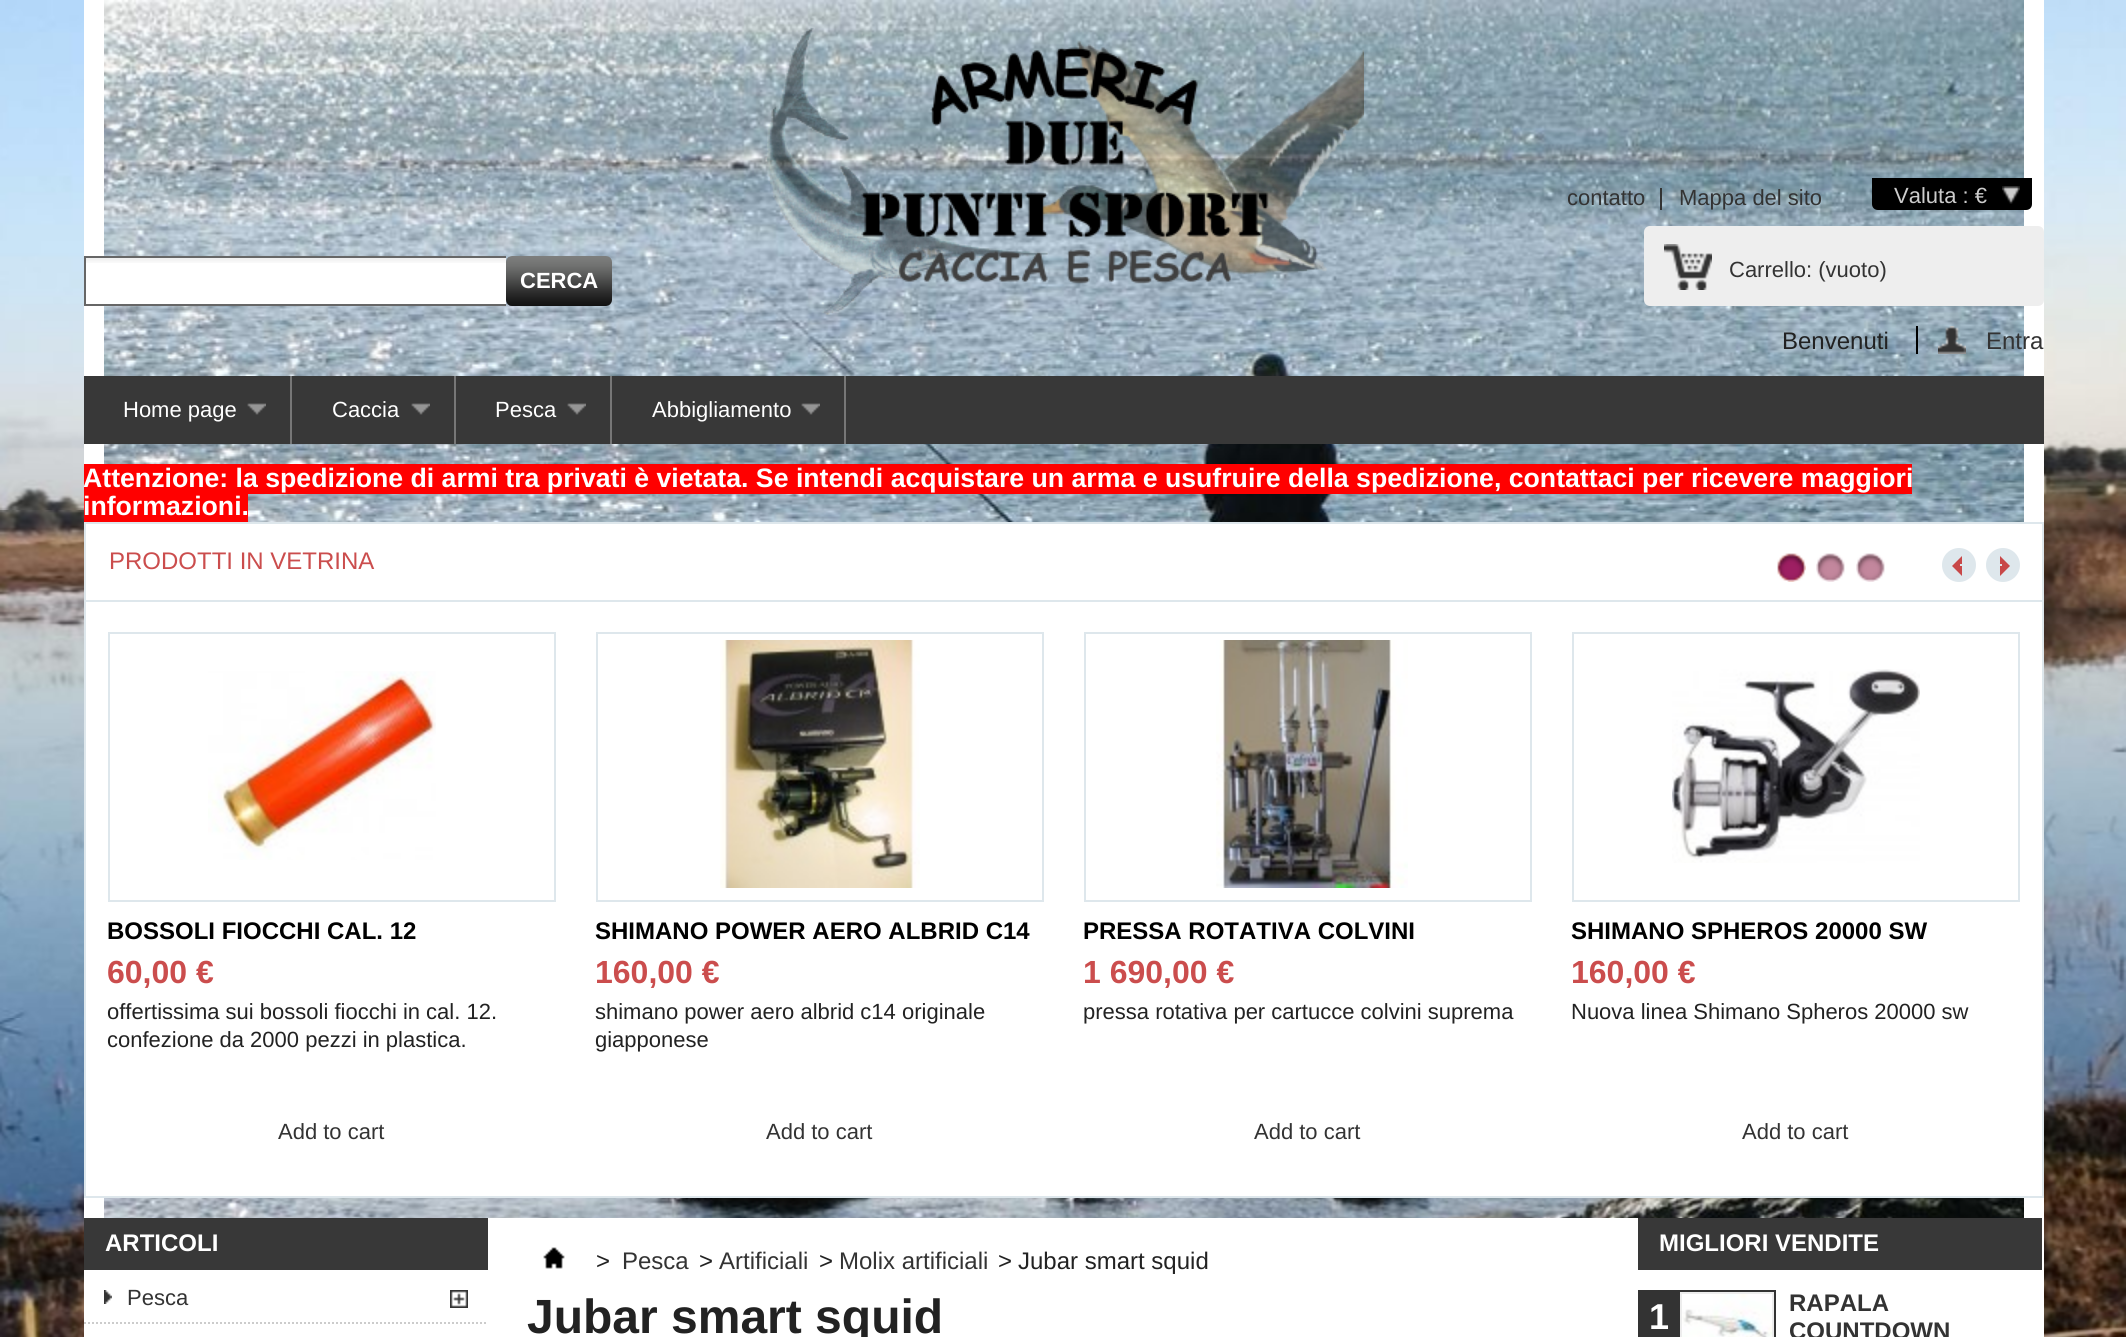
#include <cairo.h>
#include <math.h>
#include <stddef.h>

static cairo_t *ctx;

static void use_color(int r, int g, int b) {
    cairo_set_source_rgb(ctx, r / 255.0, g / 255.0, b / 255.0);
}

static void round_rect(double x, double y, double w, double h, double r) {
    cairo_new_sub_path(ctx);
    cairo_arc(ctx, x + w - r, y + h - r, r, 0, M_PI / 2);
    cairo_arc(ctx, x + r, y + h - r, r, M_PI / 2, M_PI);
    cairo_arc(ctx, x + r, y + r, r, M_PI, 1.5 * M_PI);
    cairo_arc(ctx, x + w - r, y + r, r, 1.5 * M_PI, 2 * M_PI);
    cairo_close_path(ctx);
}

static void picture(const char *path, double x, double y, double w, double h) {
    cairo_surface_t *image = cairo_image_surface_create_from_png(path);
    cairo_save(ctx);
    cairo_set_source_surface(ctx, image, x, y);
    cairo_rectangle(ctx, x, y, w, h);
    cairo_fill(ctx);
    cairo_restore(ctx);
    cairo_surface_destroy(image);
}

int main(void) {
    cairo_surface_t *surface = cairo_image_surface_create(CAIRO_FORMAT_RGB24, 2126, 1337);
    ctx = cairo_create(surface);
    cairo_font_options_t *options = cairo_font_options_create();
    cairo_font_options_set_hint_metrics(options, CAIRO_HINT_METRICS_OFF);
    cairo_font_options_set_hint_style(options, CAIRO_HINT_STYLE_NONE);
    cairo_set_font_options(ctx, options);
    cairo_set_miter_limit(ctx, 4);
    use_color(255, 255, 255);
    cairo_paint(ctx);
    picture("img1.png", 0, 0, 2126, 1337);
    use_color(255, 255, 255);
    cairo_rectangle(ctx, 84, 0, 1960, 1337);
    cairo_fill(ctx);
    picture("img2.png", 104, 0, 1920, 1218);
    picture("img3.png", 765, 27, 599, 288);
    cairo_select_font_face(ctx, "Liberation Sans", CAIRO_FONT_SLANT_NORMAL, CAIRO_FONT_WEIGHT_NORMAL);
    cairo_set_font_size(ctx, 22);
    use_color(51, 51, 51);
    cairo_move_to(ctx, 1567, 205);
    cairo_show_text(ctx, "contatto");
    cairo_rectangle(ctx, 1660, 188, 2, 22);
    cairo_fill(ctx);
    cairo_move_to(ctx, 1679, 205);
    cairo_show_text(ctx, "Mappa del sito");
    use_color(0, 0, 0);
    cairo_new_path(ctx);
    cairo_move_to(ctx, 1872, 178);
    cairo_line_to(ctx, 2032, 178);
    cairo_line_to(ctx, 2032, 204);
    cairo_curve_to(ctx, 2032, 207.5, 2029.5, 210, 2026, 210);
    cairo_line_to(ctx, 1878, 210);
    cairo_curve_to(ctx, 1874.5, 210, 1872, 207.5, 1872, 204);
    cairo_close_path(ctx);
    cairo_fill(ctx);
    picture("img4.png", 2002, 186, 18, 18);
    use_color(204, 204, 204);
    cairo_move_to(ctx, 1894, 203);
    cairo_show_text(ctx, "Valuta : €");
    use_color(255, 255, 255);
    cairo_rectangle(ctx, 104, 263, 402, 41);
    cairo_fill(ctx);
    picture("img5.png", 86, 258, 420, 5);
    use_color(102, 102, 102);
    cairo_rectangle(ctx, 84, 256, 422, 2);
    cairo_fill(ctx);
    cairo_rectangle(ctx, 84, 304, 422, 2);
    cairo_fill(ctx);
    cairo_rectangle(ctx, 84, 256, 2, 50);
    cairo_fill(ctx);
    picture("img6.png", 506, 256, 106, 50);
    cairo_select_font_face(ctx, "Liberation Sans", CAIRO_FONT_SLANT_NORMAL, CAIRO_FONT_WEIGHT_BOLD);
    use_color(255, 255, 255);
    cairo_move_to(ctx, 520, 288);
    cairo_show_text(ctx, "CERCA");
    use_color(238, 238, 238);
    round_rect(1644, 226, 400, 80, 6);
    cairo_fill(ctx);
    picture("img7.png", 1664, 244, 48, 46);
    cairo_select_font_face(ctx, "Liberation Sans", CAIRO_FONT_SLANT_NORMAL, CAIRO_FONT_WEIGHT_NORMAL);
    use_color(51, 51, 51);
    cairo_move_to(ctx, 1729, 277);
    cairo_show_text(ctx, "Carrello: (vuoto)");
    cairo_set_font_size(ctx, 24);
    use_color(34, 34, 34);
    cairo_move_to(ctx, 1782, 349);
    cairo_show_text(ctx, "Benvenuti");
    picture("img8.png", 1938, 326, 28, 28);
    use_color(0, 0, 0);
    cairo_rectangle(ctx, 1916, 326, 2, 28);
    cairo_fill(ctx);
    use_color(51, 51, 51);
    cairo_move_to(ctx, 1986, 349);
    cairo_show_text(ctx, "Entra");
    use_color(56, 56, 56);
    cairo_rectangle(ctx, 84, 376, 1960, 68);
    cairo_fill(ctx);
    use_color(119, 119, 119);
    cairo_rectangle(ctx, 290, 376, 2, 68);
    cairo_fill(ctx);
    cairo_set_font_size(ctx, 22);
    use_color(255, 255, 255);
    cairo_move_to(ctx, 123, 417);
    cairo_show_text(ctx, "Home page");
    picture("img9.png", 247, 403, 19, 12);
    use_color(119, 119, 119);
    cairo_rectangle(ctx, 454, 376, 2, 68);
    cairo_fill(ctx);
    use_color(255, 255, 255);
    cairo_move_to(ctx, 332, 417);
    cairo_show_text(ctx, "Caccia");
    picture("img9.png", 411, 403, 19, 12);
    use_color(119, 119, 119);
    cairo_rectangle(ctx, 610, 376, 2, 68);
    cairo_fill(ctx);
    use_color(255, 255, 255);
    cairo_move_to(ctx, 495, 417);
    cairo_show_text(ctx, "Pesca");
    picture("img9.png", 567, 403, 19, 12);
    use_color(119, 119, 119);
    cairo_rectangle(ctx, 844, 376, 2, 68);
    cairo_fill(ctx);
    use_color(255, 255, 255);
    cairo_move_to(ctx, 652, 417);
    cairo_show_text(ctx, "Abbigliamento");
    picture("img9.png", 801, 403, 19, 12);
    use_color(255, 0, 0);
    cairo_rectangle(ctx, 84, 464, 1828, 30);
    cairo_fill(ctx);
    cairo_select_font_face(ctx, "Liberation Sans", CAIRO_FONT_SLANT_NORMAL, CAIRO_FONT_WEIGHT_BOLD);
    cairo_set_font_size(ctx, 26.67);
    use_color(255, 255, 255);
    cairo_move_to(ctx, 83, 487);
    cairo_show_text(ctx, "Attenzione: la spedizione di armi tra privati è vietata. Se intendi acquistare un arma e usufruire della spedizione, contattaci per ricevere maggiori");
    use_color(255, 0, 0);
    cairo_rectangle(ctx, 84, 494, 164, 28);
    cairo_fill(ctx);
    use_color(255, 255, 255);
    cairo_move_to(ctx, 83, 515);
    cairo_show_text(ctx, "informazioni.");
    cairo_rectangle(ctx, 104, 524, 1920, 76);
    cairo_fill(ctx);
    cairo_rectangle(ctx, 85, 523, 1958, 78);
    use_color(222, 231, 236);
    cairo_stroke(ctx);
    cairo_select_font_face(ctx, "Liberation Sans", CAIRO_FONT_SLANT_NORMAL, CAIRO_FONT_WEIGHT_NORMAL);
    cairo_set_font_size(ctx, 24);
    use_color(203, 77, 77);
    cairo_move_to(ctx, 109, 569);
    cairo_show_text(ctx, "PRODOTTI IN VETRINA");
    use_color(255, 255, 255);
    cairo_rectangle(ctx, 104, 602, 1920, 594);
    cairo_fill(ctx);
    use_color(222, 231, 236);
    cairo_rectangle(ctx, 2042, 602, 2, 596);
    cairo_fill(ctx);
    cairo_rectangle(ctx, 84, 1196, 1960, 2);
    cairo_fill(ctx);
    cairo_rectangle(ctx, 84, 602, 2, 596);
    cairo_fill(ctx);
    picture("img10.png", 1777, 553, 29, 29);
    picture("img11.png", 1816, 553, 29, 29);
    picture("img11.png", 1856, 553, 29, 29);
    cairo_arc(ctx, 1959, 565, 17, 0, 2 * M_PI);
    cairo_fill(ctx);
    use_color(200, 72, 72);
    cairo_new_path(ctx);
    cairo_move_to(ctx, 1962, 556);
    cairo_line_to(ctx, 1962, 576);
    cairo_line_to(ctx, 1952, 566);
    cairo_close_path(ctx);
    cairo_fill(ctx);
    use_color(222, 231, 236);
    cairo_rectangle(ctx, 1960, 564, 2, 2);
    cairo_fill(ctx);
    cairo_arc(ctx, 2003, 565, 17, 0, 2 * M_PI);
    cairo_fill(ctx);
    use_color(200, 72, 72);
    cairo_new_path(ctx);
    cairo_move_to(ctx, 2000, 576);
    cairo_line_to(ctx, 2000, 556);
    cairo_line_to(ctx, 2010, 566);
    cairo_close_path(ctx);
    cairo_fill(ctx);
    use_color(222, 231, 236);
    cairo_rectangle(ctx, 2000, 564, 2, 2);
    cairo_fill(ctx);
    cairo_rectangle(ctx, 109, 633, 446, 268);
    cairo_stroke(ctx);
    picture("img12.png", 208, 671, 228, 189);
    cairo_select_font_face(ctx, "Liberation Sans", CAIRO_FONT_SLANT_NORMAL, CAIRO_FONT_WEIGHT_BOLD);
    use_color(0, 0, 0);
    cairo_move_to(ctx, 107, 939);
    cairo_show_text(ctx, "BOSSOLI FIOCCHI CAL. 12");
    cairo_set_font_size(ctx, 32);
    use_color(203, 77, 77);
    cairo_move_to(ctx, 107, 983);
    cairo_show_text(ctx, "60,00 €");
    cairo_select_font_face(ctx, "Liberation Sans", CAIRO_FONT_SLANT_NORMAL, CAIRO_FONT_WEIGHT_NORMAL);
    cairo_set_font_size(ctx, 22);
    use_color(34, 34, 34);
    cairo_move_to(ctx, 107, 1019);
    cairo_show_text(ctx, "offertissima sui bossoli fiocchi in cal. 12.");
    cairo_move_to(ctx, 107, 1047);
    cairo_show_text(ctx, "confezione da 2000 pezzi in plastica.");
    use_color(51, 51, 51);
    cairo_move_to(ctx, 278, 1139);
    cairo_show_text(ctx, "Add to cart");
    cairo_rectangle(ctx, 597, 633, 446, 268);
    use_color(222, 231, 236);
    cairo_stroke(ctx);
    picture("img13.png", 720, 640, 200, 248);
    cairo_select_font_face(ctx, "Liberation Sans", CAIRO_FONT_SLANT_NORMAL, CAIRO_FONT_WEIGHT_BOLD);
    cairo_set_font_size(ctx, 24);
    use_color(0, 0, 0);
    cairo_move_to(ctx, 595, 939);
    cairo_show_text(ctx, "SHIMANO POWER AERO ALBRID C14");
    cairo_set_font_size(ctx, 32);
    use_color(203, 77, 77);
    cairo_move_to(ctx, 595, 983);
    cairo_show_text(ctx, "160,00 €");
    cairo_select_font_face(ctx, "Liberation Sans", CAIRO_FONT_SLANT_NORMAL, CAIRO_FONT_WEIGHT_NORMAL);
    cairo_set_font_size(ctx, 22);
    use_color(34, 34, 34);
    cairo_move_to(ctx, 595, 1019);
    cairo_show_text(ctx, "shimano power aero albrid c14 originale");
    cairo_move_to(ctx, 595, 1047);
    cairo_show_text(ctx, "giapponese");
    use_color(51, 51, 51);
    cairo_move_to(ctx, 766, 1139);
    cairo_show_text(ctx, "Add to cart");
    cairo_rectangle(ctx, 1085, 633, 446, 268);
    use_color(222, 231, 236);
    cairo_stroke(ctx);
    picture("img14.png", 1216, 640, 192, 248);
    cairo_select_font_face(ctx, "Liberation Sans", CAIRO_FONT_SLANT_NORMAL, CAIRO_FONT_WEIGHT_BOLD);
    cairo_set_font_size(ctx, 24);
    use_color(0, 0, 0);
    cairo_move_to(ctx, 1083, 939);
    cairo_show_text(ctx, "PRESSA ROTATIVA COLVINI");
    cairo_set_font_size(ctx, 32);
    use_color(203, 77, 77);
    cairo_move_to(ctx, 1083, 983);
    cairo_show_text(ctx, "1 690,00 €");
    cairo_select_font_face(ctx, "Liberation Sans", CAIRO_FONT_SLANT_NORMAL, CAIRO_FONT_WEIGHT_NORMAL);
    cairo_set_font_size(ctx, 22);
    use_color(34, 34, 34);
    cairo_move_to(ctx, 1083, 1019);
    cairo_show_text(ctx, "pressa rotativa per cartucce colvini suprema");
    use_color(51, 51, 51);
    cairo_move_to(ctx, 1254, 1139);
    cairo_show_text(ctx, "Add to cart");
    cairo_rectangle(ctx, 1573, 633, 446, 268);
    use_color(222, 231, 236);
    cairo_stroke(ctx);
    picture("img15.png", 1672, 669, 248, 194);
    cairo_select_font_face(ctx, "Liberation Sans", CAIRO_FONT_SLANT_NORMAL, CAIRO_FONT_WEIGHT_BOLD);
    cairo_set_font_size(ctx, 24);
    use_color(0, 0, 0);
    cairo_move_to(ctx, 1571, 939);
    cairo_show_text(ctx, "SHIMANO SPHEROS 20000 SW");
    cairo_set_font_size(ctx, 32);
    use_color(203, 77, 77);
    cairo_move_to(ctx, 1571, 983);
    cairo_show_text(ctx, "160,00 €");
    cairo_select_font_face(ctx, "Liberation Sans", CAIRO_FONT_SLANT_NORMAL, CAIRO_FONT_WEIGHT_NORMAL);
    cairo_set_font_size(ctx, 22);
    use_color(34, 34, 34);
    cairo_move_to(ctx, 1571, 1019);
    cairo_show_text(ctx, "Nuova linea Shimano Spheros 20000 sw");
    use_color(51, 51, 51);
    cairo_move_to(ctx, 1742, 1139);
    cairo_show_text(ctx, "Add to cart");
    use_color(56, 56, 56);
    cairo_rectangle(ctx, 84, 1218, 404, 52);
    cairo_fill(ctx);
    cairo_select_font_face(ctx, "Liberation Sans", CAIRO_FONT_SLANT_NORMAL, CAIRO_FONT_WEIGHT_BOLD);
    cairo_set_font_size(ctx, 24);
    use_color(255, 255, 255);
    cairo_move_to(ctx, 105, 1251);
    cairo_show_text(ctx, "ARTICOLI");
    cairo_new_path(ctx);
    cairo_move_to(ctx, 84, 1323);
    cairo_line_to(ctx, 488, 1323);
    use_color(204, 204, 204);
    cairo_set_dash(ctx, (double[]){2, 2}, 2, 0);
    cairo_stroke(ctx);
    picture("img16.png", 104, 1290, 8, 14);
    cairo_select_font_face(ctx, "Liberation Sans", CAIRO_FONT_SLANT_NORMAL, CAIRO_FONT_WEIGHT_NORMAL);
    cairo_set_font_size(ctx, 22);
    use_color(51, 51, 51);
    cairo_move_to(ctx, 127, 1305);
    cairo_show_text(ctx, "Pesca");
    picture("img17.png", 450, 1290, 18, 18);
    picture("img18.png", 543, 1247, 22, 22);
    cairo_set_font_size(ctx, 24);
    use_color(34, 34, 34);
    cairo_move_to(ctx, 596, 1269);
    cairo_show_text(ctx, ">");
    use_color(51, 51, 51);
    cairo_move_to(ctx, 622, 1269);
    cairo_show_text(ctx, "Pesca");
    use_color(34, 34, 34);
    cairo_move_to(ctx, 699, 1269);
    cairo_show_text(ctx, ">");
    use_color(51, 51, 51);
    cairo_move_to(ctx, 719, 1269);
    cairo_show_text(ctx, "Artificiali");
    use_color(34, 34, 34);
    cairo_move_to(ctx, 819, 1269);
    cairo_show_text(ctx, ">");
    use_color(51, 51, 51);
    cairo_move_to(ctx, 839, 1269);
    cairo_show_text(ctx, "Molix artificiali");
    use_color(34, 34, 34);
    cairo_move_to(ctx, 998, 1269);
    cairo_show_text(ctx, ">");
    cairo_move_to(ctx, 1018, 1269);
    cairo_show_text(ctx, "Jubar smart squid");
    cairo_select_font_face(ctx, "Liberation Sans", CAIRO_FONT_SLANT_NORMAL, CAIRO_FONT_WEIGHT_BOLD);
    cairo_set_font_size(ctx, 48);
    cairo_move_to(ctx, 527, 1333);
    cairo_show_text(ctx, "Jubar smart squid");
    use_color(56, 56, 56);
    cairo_rectangle(ctx, 1638, 1218, 404, 52);
    cairo_fill(ctx);
    cairo_set_font_size(ctx, 24);
    use_color(255, 255, 255);
    cairo_move_to(ctx, 1659, 1251);
    cairo_show_text(ctx, "MIGLIORI VENDITE");
    use_color(51, 51, 51);
    cairo_rectangle(ctx, 1638, 1290, 138, 47);
    cairo_fill(ctx);
    cairo_rectangle(ctx, 1681, 1293, 92, 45);
    use_color(237, 237, 237);
    cairo_set_dash(ctx, NULL, 0, 0);
    cairo_stroke(ctx);
    cairo_set_font_size(ctx, 36);
    use_color(255, 255, 255);
    cairo_move_to(ctx, 1649, 1329);
    cairo_show_text(ctx, "1");
    picture("img19.png", 1682, 1294, 90, 43);
    cairo_set_font_size(ctx, 24);
    use_color(51, 51, 51);
    cairo_move_to(ctx, 1789, 1311);
    cairo_show_text(ctx, "RAPALA");
    cairo_move_to(ctx, 1789, 1339);
    cairo_show_text(ctx, "COUNTDOWN");
    cairo_surface_write_to_png(surface, "result.png");
    cairo_font_options_destroy(options);
    cairo_destroy(ctx);
    cairo_surface_destroy(surface);
    return 0;
}
